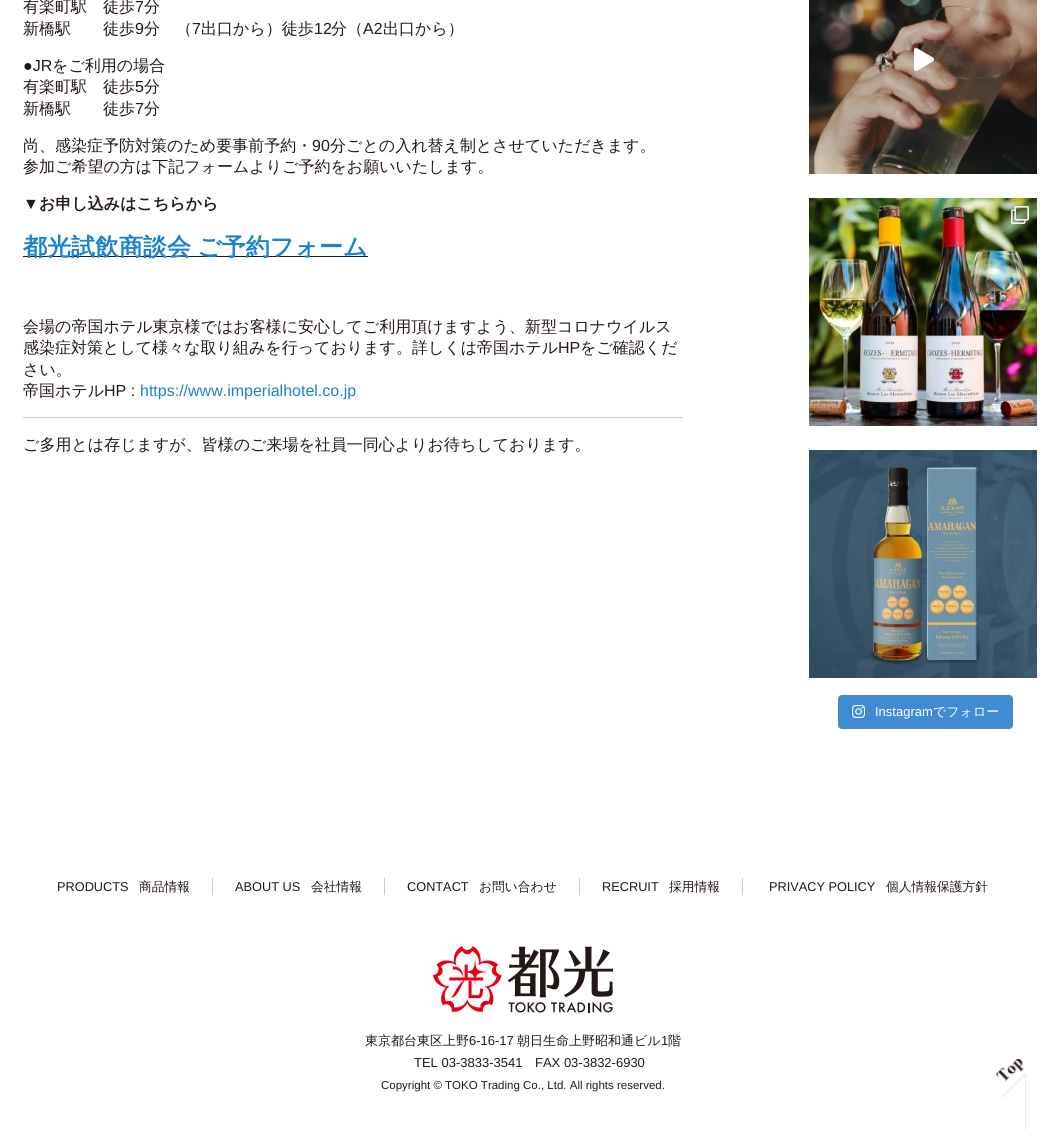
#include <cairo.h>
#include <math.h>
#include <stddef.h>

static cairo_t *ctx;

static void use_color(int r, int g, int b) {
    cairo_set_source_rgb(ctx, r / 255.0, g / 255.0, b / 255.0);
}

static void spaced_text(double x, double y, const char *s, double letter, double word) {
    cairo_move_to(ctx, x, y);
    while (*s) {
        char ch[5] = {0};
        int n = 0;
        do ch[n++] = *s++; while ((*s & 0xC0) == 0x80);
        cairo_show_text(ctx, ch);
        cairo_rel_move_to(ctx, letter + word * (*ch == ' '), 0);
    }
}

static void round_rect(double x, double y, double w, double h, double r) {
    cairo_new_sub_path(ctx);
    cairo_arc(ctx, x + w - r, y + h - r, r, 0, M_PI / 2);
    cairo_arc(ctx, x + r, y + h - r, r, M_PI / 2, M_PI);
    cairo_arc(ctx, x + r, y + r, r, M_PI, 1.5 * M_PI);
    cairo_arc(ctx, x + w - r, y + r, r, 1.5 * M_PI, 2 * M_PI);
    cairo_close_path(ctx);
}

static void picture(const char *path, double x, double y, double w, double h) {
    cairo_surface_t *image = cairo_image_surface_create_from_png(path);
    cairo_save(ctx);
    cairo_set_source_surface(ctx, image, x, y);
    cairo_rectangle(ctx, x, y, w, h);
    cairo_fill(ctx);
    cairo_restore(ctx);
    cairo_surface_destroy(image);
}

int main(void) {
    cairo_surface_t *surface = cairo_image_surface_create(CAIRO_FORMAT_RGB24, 1046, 1136);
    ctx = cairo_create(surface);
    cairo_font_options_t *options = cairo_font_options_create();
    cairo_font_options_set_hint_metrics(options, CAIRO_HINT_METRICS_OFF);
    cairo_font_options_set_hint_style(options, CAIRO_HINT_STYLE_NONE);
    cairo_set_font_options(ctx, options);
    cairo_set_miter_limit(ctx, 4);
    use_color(255, 255, 255);
    cairo_paint(ctx);
    cairo_select_font_face(ctx, "WenQuanYi Zen Hei Medium", CAIRO_FONT_SLANT_NORMAL, CAIRO_FONT_WEIGHT_NORMAL);
    cairo_set_font_size(ctx, 16);
    use_color(35, 24, 21);
    cairo_move_to(ctx, 23, 12);
    cairo_show_text(ctx, "有楽町駅　徒歩");
    cairo_select_font_face(ctx, "Liberation Sans", CAIRO_FONT_SLANT_NORMAL, CAIRO_FONT_WEIGHT_NORMAL);
    cairo_move_to(ctx, 135, 12);
    cairo_show_text(ctx, "7");
    cairo_select_font_face(ctx, "WenQuanYi Zen Hei Medium", CAIRO_FONT_SLANT_NORMAL, CAIRO_FONT_WEIGHT_NORMAL);
    cairo_move_to(ctx, 144, 12);
    cairo_show_text(ctx, "分");
    cairo_move_to(ctx, 23, 34);
    cairo_show_text(ctx, "新橋駅　　徒歩");
    cairo_select_font_face(ctx, "Liberation Sans", CAIRO_FONT_SLANT_NORMAL, CAIRO_FONT_WEIGHT_NORMAL);
    cairo_move_to(ctx, 135, 34);
    cairo_show_text(ctx, "9");
    cairo_select_font_face(ctx, "WenQuanYi Zen Hei Medium", CAIRO_FONT_SLANT_NORMAL, CAIRO_FONT_WEIGHT_NORMAL);
    cairo_move_to(ctx, 144, 34);
    cairo_show_text(ctx, "分　（");
    cairo_select_font_face(ctx, "Liberation Sans", CAIRO_FONT_SLANT_NORMAL, CAIRO_FONT_WEIGHT_NORMAL);
    cairo_move_to(ctx, 192, 34);
    cairo_show_text(ctx, "7");
    cairo_select_font_face(ctx, "WenQuanYi Zen Hei Medium", CAIRO_FONT_SLANT_NORMAL, CAIRO_FONT_WEIGHT_NORMAL);
    cairo_move_to(ctx, 201, 34);
    cairo_show_text(ctx, "出口から）徒歩");
    cairo_select_font_face(ctx, "Liberation Sans", CAIRO_FONT_SLANT_NORMAL, CAIRO_FONT_WEIGHT_NORMAL);
    cairo_move_to(ctx, 314, 34);
    cairo_show_text(ctx, "12");
    cairo_select_font_face(ctx, "WenQuanYi Zen Hei Medium", CAIRO_FONT_SLANT_NORMAL, CAIRO_FONT_WEIGHT_NORMAL);
    cairo_move_to(ctx, 331, 34);
    cairo_show_text(ctx, "分（");
    cairo_select_font_face(ctx, "Liberation Sans", CAIRO_FONT_SLANT_NORMAL, CAIRO_FONT_WEIGHT_NORMAL);
    cairo_move_to(ctx, 363, 34);
    cairo_show_text(ctx, "A2");
    cairo_select_font_face(ctx, "WenQuanYi Zen Hei Medium", CAIRO_FONT_SLANT_NORMAL, CAIRO_FONT_WEIGHT_NORMAL);
    cairo_move_to(ctx, 383, 34);
    cairo_show_text(ctx, "出口から）");
    cairo_select_font_face(ctx, "Liberation Sans", CAIRO_FONT_SLANT_NORMAL, CAIRO_FONT_WEIGHT_NORMAL);
    cairo_move_to(ctx, 23, 71);
    cairo_show_text(ctx, "●JR");
    cairo_select_font_face(ctx, "WenQuanYi Zen Hei Medium", CAIRO_FONT_SLANT_NORMAL, CAIRO_FONT_WEIGHT_NORMAL);
    cairo_move_to(ctx, 52, 71);
    cairo_show_text(ctx, "をご利用の場合");
    cairo_move_to(ctx, 23, 92);
    cairo_show_text(ctx, "有楽町駅　徒歩");
    cairo_select_font_face(ctx, "Liberation Sans", CAIRO_FONT_SLANT_NORMAL, CAIRO_FONT_WEIGHT_NORMAL);
    cairo_move_to(ctx, 135, 92);
    cairo_show_text(ctx, "5");
    cairo_select_font_face(ctx, "WenQuanYi Zen Hei Medium", CAIRO_FONT_SLANT_NORMAL, CAIRO_FONT_WEIGHT_NORMAL);
    cairo_move_to(ctx, 144, 92);
    cairo_show_text(ctx, "分");
    cairo_move_to(ctx, 23, 114);
    cairo_show_text(ctx, "新橋駅　　徒歩");
    cairo_select_font_face(ctx, "Liberation Sans", CAIRO_FONT_SLANT_NORMAL, CAIRO_FONT_WEIGHT_NORMAL);
    cairo_move_to(ctx, 135, 114);
    cairo_show_text(ctx, "7");
    cairo_select_font_face(ctx, "WenQuanYi Zen Hei Medium", CAIRO_FONT_SLANT_NORMAL, CAIRO_FONT_WEIGHT_NORMAL);
    cairo_move_to(ctx, 144, 114);
    cairo_show_text(ctx, "分");
    cairo_move_to(ctx, 23, 151);
    cairo_show_text(ctx, "尚、感染症予防対策のため要事前予約・");
    cairo_select_font_face(ctx, "Liberation Sans", CAIRO_FONT_SLANT_NORMAL, CAIRO_FONT_WEIGHT_NORMAL);
    cairo_move_to(ctx, 312, 151);
    cairo_show_text(ctx, "90");
    cairo_select_font_face(ctx, "WenQuanYi Zen Hei Medium", CAIRO_FONT_SLANT_NORMAL, CAIRO_FONT_WEIGHT_NORMAL);
    cairo_move_to(ctx, 330, 151);
    cairo_show_text(ctx, "分ごとの入れ替え制とさせていただきます。");
    cairo_move_to(ctx, 23, 172);
    cairo_show_text(ctx, "参加ご希望の方は下記フォームよりご予約をお願いいたします。");
    cairo_select_font_face(ctx, "Liberation Sans", CAIRO_FONT_SLANT_NORMAL, CAIRO_FONT_WEIGHT_BOLD);
    cairo_move_to(ctx, 23, 209);
    cairo_show_text(ctx, "▼");
    cairo_select_font_face(ctx, "WenQuanYi Zen Hei", CAIRO_FONT_SLANT_NORMAL, CAIRO_FONT_WEIGHT_BOLD);
    cairo_move_to(ctx, 39, 209);
    cairo_show_text(ctx, "お申し込みはこちらから");
    cairo_rectangle(ctx, 23, 256, 345, 1);
    cairo_fill(ctx);
    cairo_set_font_size(ctx, 24);
    use_color(25, 130, 209);
    spaced_text(23, 255, "都光試飲商談会 ご予約フォーム", 0, -1);
    cairo_select_font_face(ctx, "WenQuanYi Zen Hei Medium", CAIRO_FONT_SLANT_NORMAL, CAIRO_FONT_WEIGHT_NORMAL);
    cairo_set_font_size(ctx, 16);
    use_color(35, 24, 21);
    cairo_move_to(ctx, 23, 332);
    cairo_show_text(ctx, "会場の帝国ホテル東京様ではお客様に安心してご利用頂けますよう、新型コロナウイルス");
    cairo_move_to(ctx, 23, 353);
    cairo_show_text(ctx, "感染症対策として様々な取り組みを行っております。詳しくは帝国ホテル");
    cairo_select_font_face(ctx, "Liberation Sans", CAIRO_FONT_SLANT_NORMAL, CAIRO_FONT_WEIGHT_NORMAL);
    cairo_move_to(ctx, 558, 353);
    cairo_show_text(ctx, "HP");
    cairo_select_font_face(ctx, "WenQuanYi Zen Hei Medium", CAIRO_FONT_SLANT_NORMAL, CAIRO_FONT_WEIGHT_NORMAL);
    cairo_move_to(ctx, 580, 353);
    cairo_show_text(ctx, "をご確認くだ");
    cairo_move_to(ctx, 23, 375);
    cairo_show_text(ctx, "さい。");
    cairo_move_to(ctx, 23, 396);
    cairo_show_text(ctx, "帝国ホテル");
    cairo_select_font_face(ctx, "Liberation Sans", CAIRO_FONT_SLANT_NORMAL, CAIRO_FONT_WEIGHT_NORMAL);
    cairo_move_to(ctx, 104, 396);
    cairo_show_text(ctx, "HP :");
    use_color(25, 130, 209);
    cairo_move_to(ctx, 140, 396);
    cairo_show_text(ctx, "https://www.imperialhotel.co.jp");
    use_color(204, 204, 204);
    cairo_rectangle(ctx, 23, 417, 660, 1);
    cairo_fill(ctx);
    cairo_select_font_face(ctx, "WenQuanYi Zen Hei Medium", CAIRO_FONT_SLANT_NORMAL, CAIRO_FONT_WEIGHT_NORMAL);
    use_color(35, 24, 21);
    cairo_move_to(ctx, 23, 450);
    cairo_show_text(ctx, "ご多用とは存じますが、皆様のご来場を社員一同心よりお待ちしております。");
    picture("img1.png", 809, 0, 228, 174);
    picture("img2.png", 914, 48, 20, 23);
    picture("img3.png", 809, 198, 228, 228);
    picture("img4.png", 1011, 206, 18, 18);
    picture("img5.png", 809, 450, 228, 228);
    use_color(64, 139, 209);
    round_rect(838, 695, 175, 34, 4);
    cairo_fill(ctx);
    picture("img6.png", 852, 705, 13, 13);
    cairo_select_font_face(ctx, "Liberation Sans", CAIRO_FONT_SLANT_NORMAL, CAIRO_FONT_WEIGHT_NORMAL);
    cairo_set_font_size(ctx, 13);
    use_color(255, 255, 255);
    cairo_move_to(ctx, 875, 716);
    cairo_show_text(ctx, "Instagram");
    cairo_select_font_face(ctx, "WenQuanYi Zen Hei Medium", CAIRO_FONT_SLANT_NORMAL, CAIRO_FONT_WEIGHT_NORMAL);
    cairo_move_to(ctx, 933, 716);
    cairo_show_text(ctx, "でフォロー");
    picture("img7.png", 996, 1059, 30, 71);
    use_color(204, 204, 204);
    cairo_rectangle(ctx, 212, 878, 1, 17);
    cairo_fill(ctx);
    cairo_select_font_face(ctx, "Liberation Sans", CAIRO_FONT_SLANT_NORMAL, CAIRO_FONT_WEIGHT_NORMAL);
    cairo_set_font_size(ctx, 12.75);
    use_color(35, 24, 21);
    cairo_move_to(ctx, 57, 891);
    cairo_show_text(ctx, "PRODUCTS");
    cairo_select_font_face(ctx, "WenQuanYi Zen Hei Medium", CAIRO_FONT_SLANT_NORMAL, CAIRO_FONT_WEIGHT_NORMAL);
    cairo_move_to(ctx, 139, 891);
    cairo_show_text(ctx, "商品情報");
    use_color(204, 204, 204);
    cairo_rectangle(ctx, 384, 878, 1, 17);
    cairo_fill(ctx);
    cairo_select_font_face(ctx, "Liberation Sans", CAIRO_FONT_SLANT_NORMAL, CAIRO_FONT_WEIGHT_NORMAL);
    use_color(35, 24, 21);
    cairo_move_to(ctx, 235, 891);
    cairo_show_text(ctx, "ABOUT US");
    cairo_select_font_face(ctx, "WenQuanYi Zen Hei Medium", CAIRO_FONT_SLANT_NORMAL, CAIRO_FONT_WEIGHT_NORMAL);
    cairo_move_to(ctx, 311, 891);
    cairo_show_text(ctx, "会社情報");
    use_color(204, 204, 204);
    cairo_rectangle(ctx, 579, 878, 1, 17);
    cairo_fill(ctx);
    cairo_select_font_face(ctx, "Liberation Sans", CAIRO_FONT_SLANT_NORMAL, CAIRO_FONT_WEIGHT_NORMAL);
    use_color(35, 24, 21);
    cairo_move_to(ctx, 407, 891);
    cairo_show_text(ctx, "CONTACT");
    cairo_select_font_face(ctx, "WenQuanYi Zen Hei Medium", CAIRO_FONT_SLANT_NORMAL, CAIRO_FONT_WEIGHT_NORMAL);
    cairo_move_to(ctx, 479, 891);
    cairo_show_text(ctx, "お問い合わせ");
    use_color(204, 204, 204);
    cairo_rectangle(ctx, 742, 878, 1, 17);
    cairo_fill(ctx);
    cairo_select_font_face(ctx, "Liberation Sans", CAIRO_FONT_SLANT_NORMAL, CAIRO_FONT_WEIGHT_NORMAL);
    use_color(35, 24, 21);
    cairo_move_to(ctx, 602, 891);
    cairo_show_text(ctx, "RECRUIT");
    cairo_select_font_face(ctx, "WenQuanYi Zen Hei Medium", CAIRO_FONT_SLANT_NORMAL, CAIRO_FONT_WEIGHT_NORMAL);
    cairo_move_to(ctx, 669, 891);
    cairo_show_text(ctx, "採用情報");
    cairo_select_font_face(ctx, "Liberation Sans", CAIRO_FONT_SLANT_NORMAL, CAIRO_FONT_WEIGHT_NORMAL);
    cairo_move_to(ctx, 769, 891);
    cairo_show_text(ctx, "PRIVACY POLICY");
    cairo_select_font_face(ctx, "WenQuanYi Zen Hei Medium", CAIRO_FONT_SLANT_NORMAL, CAIRO_FONT_WEIGHT_NORMAL);
    cairo_move_to(ctx, 886, 891);
    cairo_show_text(ctx, "個人情報保護方針");
    picture("img8.png", 433, 946, 180, 67);
    cairo_set_font_size(ctx, 13);
    cairo_move_to(ctx, 365, 1045);
    cairo_show_text(ctx, "東京都台東区上野");
    cairo_select_font_face(ctx, "Liberation Sans", CAIRO_FONT_SLANT_NORMAL, CAIRO_FONT_WEIGHT_NORMAL);
    cairo_move_to(ctx, 469, 1045);
    cairo_show_text(ctx, "6-16-17");
    cairo_select_font_face(ctx, "WenQuanYi Zen Hei Medium", CAIRO_FONT_SLANT_NORMAL, CAIRO_FONT_WEIGHT_NORMAL);
    cairo_move_to(ctx, 517, 1045);
    cairo_show_text(ctx, "朝日生命上野昭和通ビル");
    cairo_select_font_face(ctx, "Liberation Sans", CAIRO_FONT_SLANT_NORMAL, CAIRO_FONT_WEIGHT_NORMAL);
    cairo_move_to(ctx, 661, 1045);
    cairo_show_text(ctx, "1");
    cairo_select_font_face(ctx, "WenQuanYi Zen Hei Medium", CAIRO_FONT_SLANT_NORMAL, CAIRO_FONT_WEIGHT_NORMAL);
    cairo_move_to(ctx, 668, 1045);
    cairo_show_text(ctx, "階");
    cairo_select_font_face(ctx, "Liberation Sans", CAIRO_FONT_SLANT_NORMAL, CAIRO_FONT_WEIGHT_NORMAL);
    cairo_move_to(ctx, 414, 1067);
    cairo_show_text(ctx, "TEL 03-3833-3541");
    cairo_move_to(ctx, 535, 1067);
    cairo_show_text(ctx, "FAX 03-3832-6930");
    cairo_set_font_size(ctx, 11.5);
    cairo_move_to(ctx, 381, 1089);
    cairo_show_text(ctx, "Copyright © TOKO Trading Co., Ltd. All rights reserved.");
    cairo_surface_write_to_png(surface, "result.png");
    cairo_font_options_destroy(options);
    cairo_destroy(ctx);
    cairo_surface_destroy(surface);
    return 0;
}
